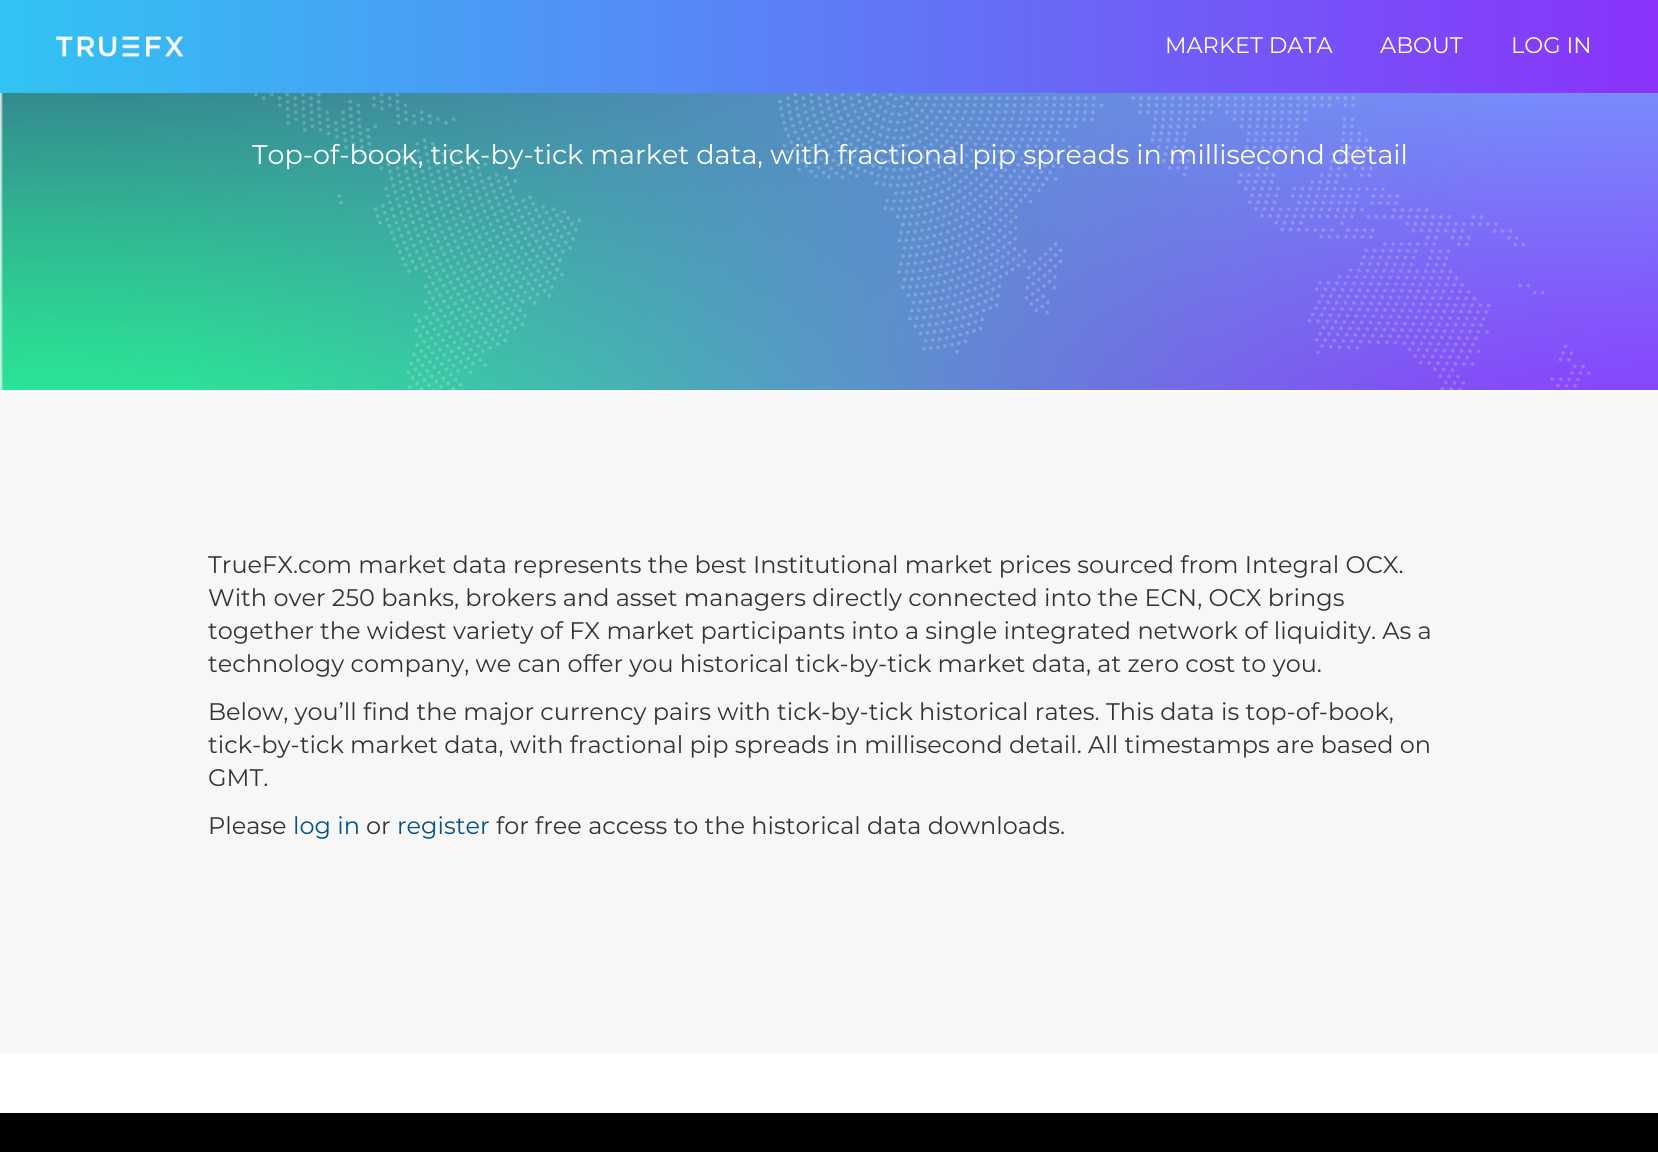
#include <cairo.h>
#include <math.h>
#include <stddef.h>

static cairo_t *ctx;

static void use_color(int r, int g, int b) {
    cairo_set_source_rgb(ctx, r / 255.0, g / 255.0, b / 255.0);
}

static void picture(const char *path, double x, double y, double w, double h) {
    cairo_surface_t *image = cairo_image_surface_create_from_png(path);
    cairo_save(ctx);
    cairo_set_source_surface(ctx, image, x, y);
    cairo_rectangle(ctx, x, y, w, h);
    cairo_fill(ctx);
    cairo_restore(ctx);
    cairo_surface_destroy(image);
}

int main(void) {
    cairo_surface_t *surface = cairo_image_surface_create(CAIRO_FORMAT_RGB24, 1658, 1152);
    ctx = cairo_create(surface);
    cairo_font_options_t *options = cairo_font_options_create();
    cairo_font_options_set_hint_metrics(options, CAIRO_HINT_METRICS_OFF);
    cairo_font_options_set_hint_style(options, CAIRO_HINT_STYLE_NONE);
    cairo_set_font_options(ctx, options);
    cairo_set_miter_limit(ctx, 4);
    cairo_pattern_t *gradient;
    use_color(255, 255, 255);
    cairo_paint(ctx);
    gradient = cairo_pattern_create_linear(0, 47, 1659, 46);
    cairo_pattern_add_color_stop_rgba(gradient, 0, 0.192, 0.769, 0.953, 1);
    cairo_pattern_add_color_stop_rgba(gradient, 1, 0.541, 0.2, 0.98, 1);
    cairo_set_source(ctx, gradient);
    cairo_pattern_destroy(gradient);
    cairo_rectangle(ctx, 0, 0, 1658, 93);
    cairo_fill(ctx);
    picture("img1.png", 55, 36, 129, 21);
    cairo_select_font_face(ctx, "Montserrat", CAIRO_FONT_SLANT_NORMAL, CAIRO_FONT_WEIGHT_NORMAL);
    cairo_set_font_size(ctx, 22.5);
    use_color(255, 255, 255);
    cairo_move_to(ctx, 1165, 53);
    cairo_show_text(ctx, "MARKET DATA");
    cairo_move_to(ctx, 1380, 53);
    cairo_show_text(ctx, "ABOUT");
    cairo_move_to(ctx, 1511, 53);
    cairo_show_text(ctx, "LOG IN");
    picture("img2.png", 0, 93, 1658, 297);
    picture("img3.png", 254, 93, 1337, 297);
    cairo_set_font_size(ctx, 27);
    cairo_move_to(ctx, 252, 164);
    cairo_show_text(ctx, "Top-of-book, tick-by-tick market data, with fractional pip spreads in millisecond detail");
    use_color(247, 247, 247);
    cairo_rectangle(ctx, 0, 392, 1658, 661);
    cairo_fill(ctx);
    cairo_set_font_size(ctx, 24);
    use_color(51, 51, 51);
    cairo_move_to(ctx, 208, 573);
    cairo_show_text(ctx, "TrueFX.com market data represents the best Institutional market prices sourced from Integral OCX.");
    cairo_move_to(ctx, 208, 606);
    cairo_show_text(ctx, "With over 250 banks, brokers and asset managers directly connected into the ECN, OCX brings");
    cairo_move_to(ctx, 208, 639);
    cairo_show_text(ctx, "together the widest variety of FX market participants into a single integrated network of liquidity. As a");
    cairo_move_to(ctx, 208, 672);
    cairo_show_text(ctx, "technology company, we can offer you historical tick-by-tick market data, at zero cost to you.");
    cairo_move_to(ctx, 208, 720);
    cairo_show_text(ctx, "Below, you’ll find the major currency pairs with tick-by-tick historical rates. This data is top-of-book,");
    cairo_move_to(ctx, 208, 753);
    cairo_show_text(ctx, "tick-by-tick market data, with fractional pip spreads in millisecond detail. All timestamps are based on");
    cairo_move_to(ctx, 208, 786);
    cairo_show_text(ctx, "GMT.");
    cairo_move_to(ctx, 208, 834);
    cairo_show_text(ctx, "Please");
    use_color(4, 80, 137);
    cairo_move_to(ctx, 293, 834);
    cairo_show_text(ctx, "log in");
    use_color(51, 51, 51);
    cairo_move_to(ctx, 366, 834);
    cairo_show_text(ctx, "or");
    use_color(4, 80, 137);
    cairo_move_to(ctx, 397, 834);
    cairo_show_text(ctx, "register");
    use_color(51, 51, 51);
    cairo_move_to(ctx, 496, 834);
    cairo_show_text(ctx, "for free access to the historical data downloads.");
    use_color(0, 0, 0);
    cairo_rectangle(ctx, 0, 1113, 1658, 39);
    cairo_fill(ctx);
    cairo_surface_write_to_png(surface, "result.png");
    cairo_font_options_destroy(options);
    cairo_destroy(ctx);
    cairo_surface_destroy(surface);
    return 0;
}
